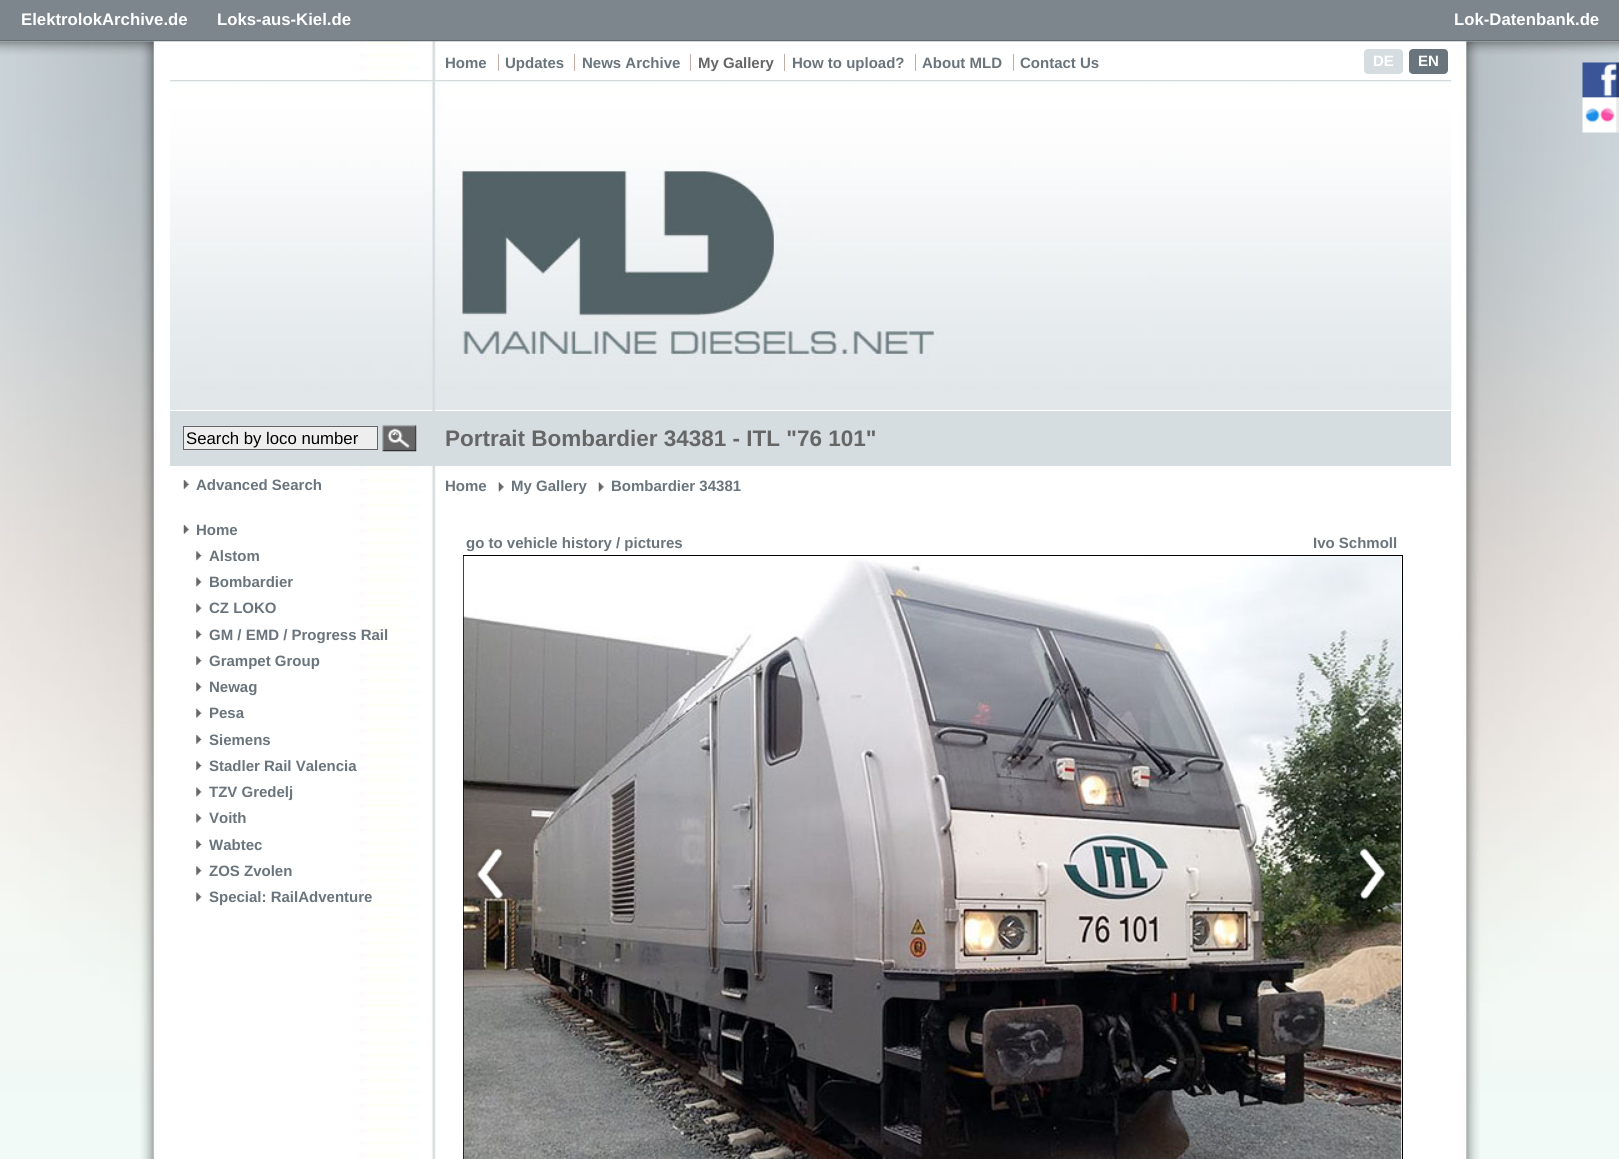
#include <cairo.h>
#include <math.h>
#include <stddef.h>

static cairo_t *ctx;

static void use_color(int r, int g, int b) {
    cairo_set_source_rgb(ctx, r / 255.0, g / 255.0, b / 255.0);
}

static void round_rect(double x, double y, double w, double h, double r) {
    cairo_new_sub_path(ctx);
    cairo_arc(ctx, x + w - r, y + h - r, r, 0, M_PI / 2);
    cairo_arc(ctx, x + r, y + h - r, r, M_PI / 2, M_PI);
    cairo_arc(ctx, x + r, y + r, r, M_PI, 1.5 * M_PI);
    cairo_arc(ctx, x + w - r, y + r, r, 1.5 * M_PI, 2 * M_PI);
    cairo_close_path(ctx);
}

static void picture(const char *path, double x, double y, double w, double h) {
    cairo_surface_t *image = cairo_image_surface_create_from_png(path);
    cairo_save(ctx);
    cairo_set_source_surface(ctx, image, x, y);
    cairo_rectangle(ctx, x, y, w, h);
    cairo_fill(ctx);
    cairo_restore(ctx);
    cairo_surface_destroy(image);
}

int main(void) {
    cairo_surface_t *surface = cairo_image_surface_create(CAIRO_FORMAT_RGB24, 1619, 1159);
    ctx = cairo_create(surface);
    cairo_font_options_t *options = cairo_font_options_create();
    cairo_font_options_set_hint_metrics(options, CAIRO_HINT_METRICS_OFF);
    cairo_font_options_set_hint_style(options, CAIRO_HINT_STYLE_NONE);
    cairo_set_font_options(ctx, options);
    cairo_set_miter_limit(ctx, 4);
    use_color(255, 255, 255);
    cairo_paint(ctx);
    picture("img1.png", 0, 41, 1619, 1118);
    use_color(125, 134, 141);
    cairo_rectangle(ctx, 0, 0, 1619, 40);
    cairo_fill(ctx);
    picture("img3.png", 360, 41, 76, 1118);
    picture("img2.png", 0, 40, 1619, 2);
    cairo_select_font_face(ctx, "Liberation Sans", CAIRO_FONT_SLANT_NORMAL, CAIRO_FONT_WEIGHT_BOLD);
    cairo_set_font_size(ctx, 16.75);
    use_color(255, 255, 255);
    cairo_move_to(ctx, 21, 25);
    cairo_show_text(ctx, "ElektrolokArchive.de");
    cairo_move_to(ctx, 217, 25);
    cairo_show_text(ctx, "Loks-aus-Kiel.de");
    cairo_move_to(ctx, 1454, 25);
    cairo_show_text(ctx, "Lok-Datenbank.de");
    picture("img4.png", 170, 80, 1282, 330);
    cairo_set_font_size(ctx, 15);
    use_color(106, 116, 124);
    cairo_move_to(ctx, 445, 68);
    cairo_show_text(ctx, "Home");
    cairo_move_to(ctx, 505, 68);
    cairo_show_text(ctx, "Updates");
    use_color(193, 173, 164);
    cairo_rectangle(ctx, 498, 54, 1, 17);
    cairo_fill(ctx);
    use_color(106, 116, 124);
    cairo_move_to(ctx, 582, 68);
    cairo_show_text(ctx, "News Archive");
    use_color(193, 173, 164);
    cairo_rectangle(ctx, 574, 54, 1, 17);
    cairo_fill(ctx);
    use_color(102, 102, 102);
    cairo_move_to(ctx, 698, 68);
    cairo_show_text(ctx, "My Gallery");
    use_color(193, 173, 164);
    cairo_rectangle(ctx, 690, 54, 1, 17);
    cairo_fill(ctx);
    use_color(106, 116, 124);
    cairo_move_to(ctx, 792, 68);
    cairo_show_text(ctx, "How to upload?");
    use_color(193, 173, 164);
    cairo_rectangle(ctx, 784, 54, 1, 17);
    cairo_fill(ctx);
    use_color(106, 116, 124);
    cairo_move_to(ctx, 922, 68);
    cairo_show_text(ctx, "About MLD");
    use_color(193, 173, 164);
    cairo_rectangle(ctx, 915, 54, 1, 17);
    cairo_fill(ctx);
    use_color(106, 116, 124);
    cairo_move_to(ctx, 1020, 68);
    cairo_show_text(ctx, "Contact Us");
    use_color(193, 173, 164);
    cairo_rectangle(ctx, 1013, 54, 1, 17);
    cairo_fill(ctx);
    use_color(213, 221, 224);
    round_rect(1364, 49, 39, 25, 4);
    cairo_fill(ctx);
    use_color(255, 255, 255);
    cairo_move_to(ctx, 1373, 66);
    cairo_show_text(ctx, "DE");
    use_color(106, 116, 124);
    round_rect(1409, 49, 39, 25, 4);
    cairo_fill(ctx);
    use_color(255, 255, 255);
    cairo_move_to(ctx, 1418, 66);
    cairo_show_text(ctx, "EN");
    use_color(213, 221, 224);
    cairo_rectangle(ctx, 170, 411, 1281, 55);
    cairo_fill(ctx);
    use_color(238, 238, 238);
    cairo_rectangle(ctx, 183.5, 426.5, 194, 23);
    cairo_fill_preserve(ctx);
    use_color(102, 102, 102);
    cairo_set_line_width(ctx, 1);
    cairo_stroke(ctx);
    cairo_select_font_face(ctx, "Liberation Sans", CAIRO_FONT_SLANT_NORMAL, CAIRO_FONT_WEIGHT_NORMAL);
    cairo_set_font_size(ctx, 16.75);
    use_color(0, 0, 0);
    cairo_move_to(ctx, 186, 444);
    cairo_show_text(ctx, "Search by loco number");
    picture("img5.png", 382, 424, 35, 28);
    cairo_select_font_face(ctx, "Liberation Sans", CAIRO_FONT_SLANT_NORMAL, CAIRO_FONT_WEIGHT_BOLD);
    cairo_set_font_size(ctx, 22.5);
    use_color(102, 102, 102);
    cairo_move_to(ctx, 445, 446);
    cairo_show_text(ctx, "Portrait Bombardier 34381 - ITL \"76 101\"");
    picture("img6.png", 183, 479, 6, 10);
    cairo_set_font_size(ctx, 15);
    use_color(106, 116, 124);
    cairo_move_to(ctx, 196, 490);
    cairo_show_text(ctx, "Advanced Search");
    picture("img6.png", 183, 524, 6, 10);
    cairo_move_to(ctx, 196, 535);
    cairo_show_text(ctx, "Home");
    picture("img7.png", 196, 551, 6, 10);
    cairo_move_to(ctx, 209, 561);
    cairo_show_text(ctx, "Alstom");
    picture("img8.png", 196, 577, 6, 10);
    cairo_move_to(ctx, 209, 587);
    cairo_show_text(ctx, "Bombardier");
    picture("img9.png", 196, 603, 6, 10);
    cairo_move_to(ctx, 209, 613);
    cairo_show_text(ctx, "CZ LOKO");
    picture("img10.png", 196, 629, 6, 10);
    cairo_move_to(ctx, 209, 640);
    cairo_show_text(ctx, "GM / EMD / Progress Rail");
    picture("img7.png", 196, 656, 6, 10);
    cairo_move_to(ctx, 209, 666);
    cairo_show_text(ctx, "Grampet Group");
    picture("img8.png", 196, 682, 6, 10);
    cairo_move_to(ctx, 209, 692);
    cairo_show_text(ctx, "Newag");
    picture("img9.png", 196, 708, 6, 10);
    cairo_move_to(ctx, 209, 718);
    cairo_show_text(ctx, "Pesa");
    picture("img10.png", 196, 734, 6, 10);
    cairo_move_to(ctx, 209, 745);
    cairo_show_text(ctx, "Siemens");
    picture("img7.png", 196, 761, 6, 10);
    cairo_move_to(ctx, 209, 771);
    cairo_show_text(ctx, "Stadler Rail Valencia");
    picture("img8.png", 196, 787, 6, 10);
    cairo_move_to(ctx, 209, 797);
    cairo_show_text(ctx, "TZV Gredelj");
    picture("img9.png", 196, 813, 6, 10);
    cairo_move_to(ctx, 209, 823);
    cairo_show_text(ctx, "Voith");
    picture("img10.png", 196, 839, 6, 10);
    cairo_move_to(ctx, 209, 850);
    cairo_show_text(ctx, "Wabtec");
    picture("img7.png", 196, 866, 6, 10);
    cairo_move_to(ctx, 209, 876);
    cairo_show_text(ctx, "ZOS Zvolen");
    picture("img8.png", 196, 892, 6, 10);
    cairo_move_to(ctx, 209, 902);
    cairo_show_text(ctx, "Special: RailAdventure");
    cairo_move_to(ctx, 445, 491);
    cairo_show_text(ctx, "Home");
    picture("img11.png", 498, 482, 6, 10);
    cairo_move_to(ctx, 511, 491);
    cairo_show_text(ctx, "My Gallery");
    picture("img11.png", 598, 482, 6, 10);
    cairo_move_to(ctx, 611, 491);
    cairo_show_text(ctx, "Bombardier 34381");
    cairo_move_to(ctx, 466, 548);
    cairo_show_text(ctx, "go to vehicle history / pictures");
    cairo_move_to(ctx, 1313, 548);
    cairo_show_text(ctx, "Ivo Schmoll");
    cairo_rectangle(ctx, 463.5, 555.5, 939, 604);
    use_color(0, 0, 0);
    cairo_stroke(ctx);
    picture("img12.png", 463, 556, 939, 603);
    picture("img13.png", 475, 847, 29, 54);
    picture("img14.png", 1359, 848, 27, 51);
    picture("img15.png", 1582, 62, 37, 36);
    picture("img16.png", 1582, 97, 37, 36);
    cairo_surface_write_to_png(surface, "result.png");
    cairo_font_options_destroy(options);
    cairo_destroy(ctx);
    cairo_surface_destroy(surface);
    return 0;
}
